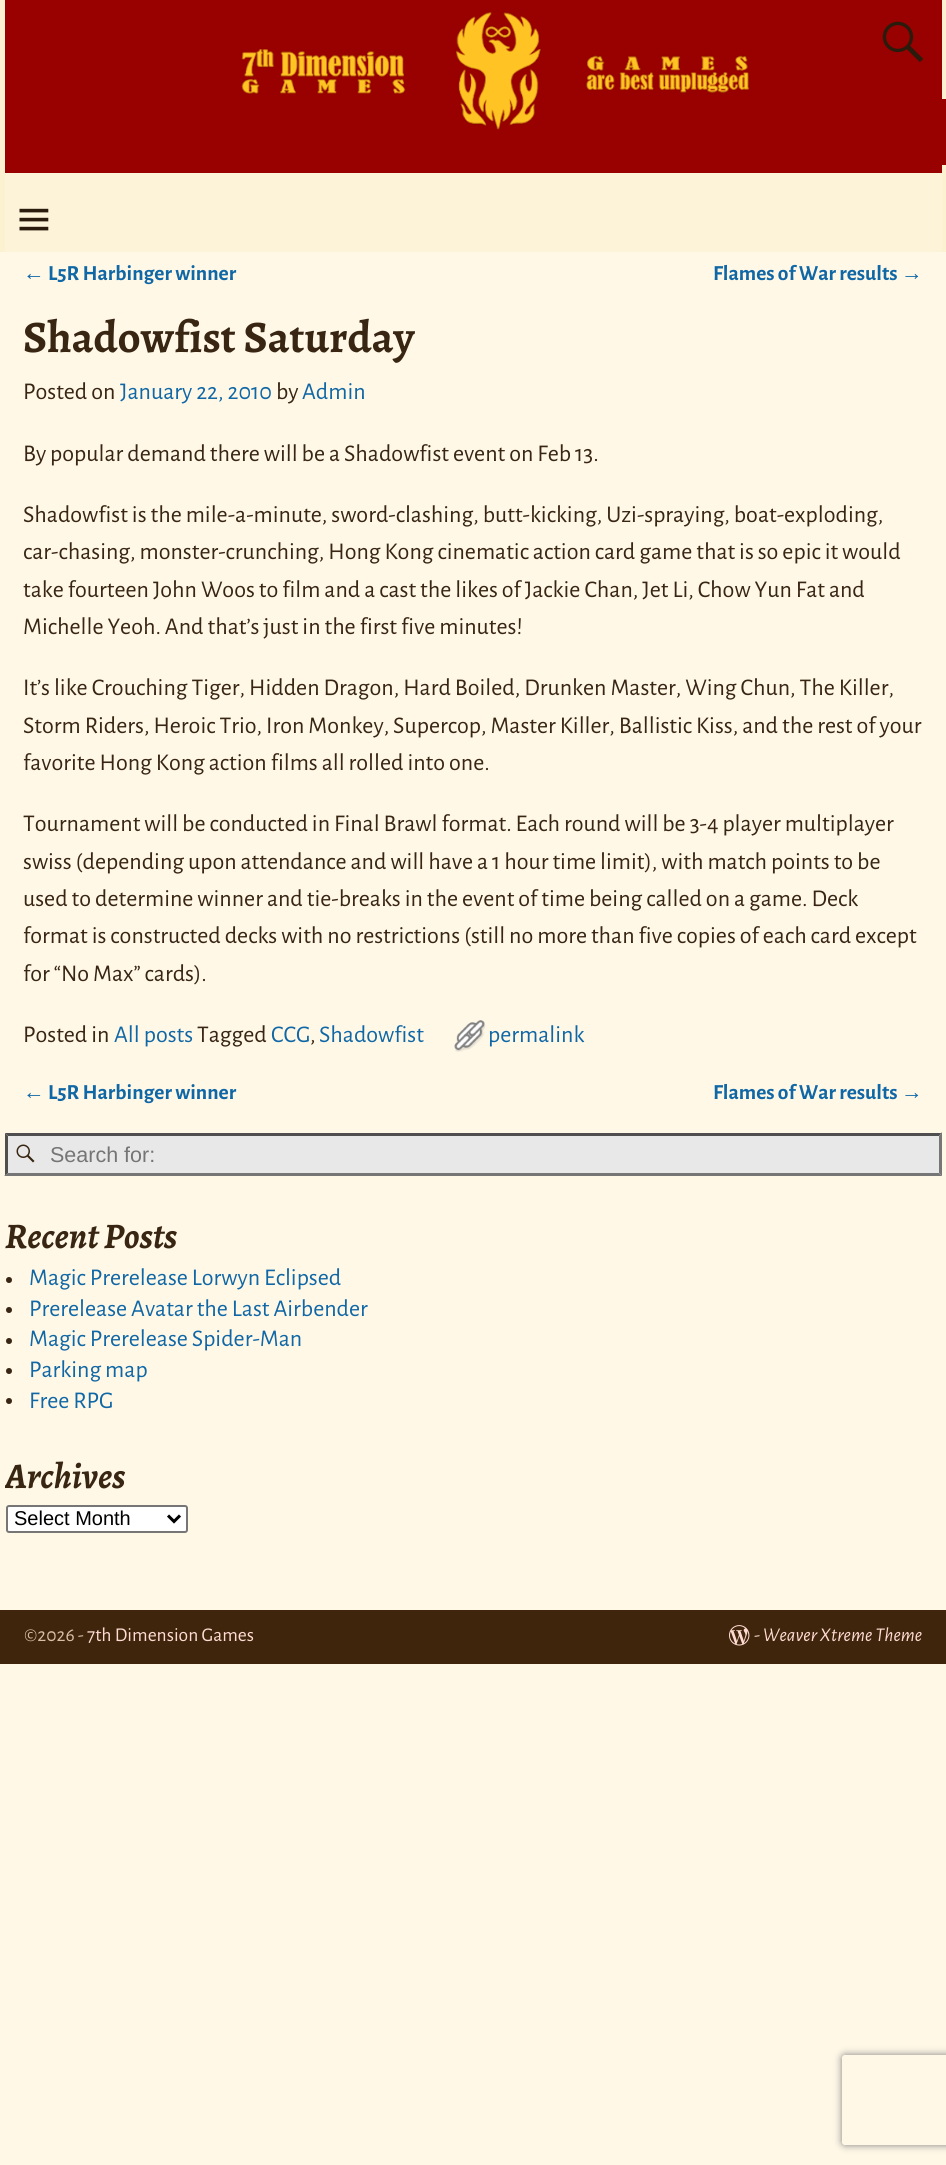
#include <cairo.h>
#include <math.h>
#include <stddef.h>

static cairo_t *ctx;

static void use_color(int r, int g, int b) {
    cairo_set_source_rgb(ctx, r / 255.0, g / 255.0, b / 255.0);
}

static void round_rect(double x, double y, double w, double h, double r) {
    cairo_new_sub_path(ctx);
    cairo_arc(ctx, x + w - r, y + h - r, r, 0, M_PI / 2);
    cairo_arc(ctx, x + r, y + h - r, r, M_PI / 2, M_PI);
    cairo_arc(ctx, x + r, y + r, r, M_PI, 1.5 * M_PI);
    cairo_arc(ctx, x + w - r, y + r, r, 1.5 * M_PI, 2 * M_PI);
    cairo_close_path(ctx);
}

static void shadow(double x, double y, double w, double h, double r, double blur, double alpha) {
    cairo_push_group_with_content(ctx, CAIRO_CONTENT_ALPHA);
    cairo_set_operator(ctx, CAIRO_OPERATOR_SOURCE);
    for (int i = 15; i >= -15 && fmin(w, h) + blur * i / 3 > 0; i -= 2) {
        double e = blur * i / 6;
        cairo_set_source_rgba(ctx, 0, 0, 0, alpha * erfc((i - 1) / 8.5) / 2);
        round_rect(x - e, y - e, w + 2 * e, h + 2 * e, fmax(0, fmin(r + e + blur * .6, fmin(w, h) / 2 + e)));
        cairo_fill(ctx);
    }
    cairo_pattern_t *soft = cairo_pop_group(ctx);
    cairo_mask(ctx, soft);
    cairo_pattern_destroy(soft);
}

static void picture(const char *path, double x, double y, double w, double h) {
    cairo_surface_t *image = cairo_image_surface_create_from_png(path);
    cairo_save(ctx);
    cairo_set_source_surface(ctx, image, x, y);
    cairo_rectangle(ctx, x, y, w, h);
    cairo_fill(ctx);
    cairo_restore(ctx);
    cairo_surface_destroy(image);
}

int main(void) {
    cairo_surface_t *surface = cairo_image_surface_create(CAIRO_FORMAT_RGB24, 946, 2165);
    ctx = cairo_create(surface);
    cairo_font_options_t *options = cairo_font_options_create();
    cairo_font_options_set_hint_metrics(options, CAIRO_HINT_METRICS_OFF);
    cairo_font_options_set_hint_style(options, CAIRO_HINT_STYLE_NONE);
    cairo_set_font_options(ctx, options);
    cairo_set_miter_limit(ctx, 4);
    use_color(255, 248, 231);
    cairo_paint(ctx);
    use_color(252, 241, 209);
    cairo_rectangle(ctx, 0, 0, 946, 252);
    cairo_fill(ctx);
    use_color(153, 0, 0);
    cairo_rectangle(ctx, 5, 0, 937, 173);
    cairo_fill(ctx);
    picture("img1.png", 241, 12, 509, 118);
    cairo_rectangle(ctx, 942, 99, 4, 66);
    cairo_fill(ctx);
    picture("img2.png", 882, 21, 42, 42);
    use_color(252, 243, 217);
    cairo_rectangle(ctx, 5, 173, 937, 79);
    cairo_fill(ctx);
    picture("img3.png", 19, 208, 30, 23);
    cairo_select_font_face(ctx, "Liberation Sans", CAIRO_FONT_SLANT_NORMAL, CAIRO_FONT_WEIGHT_NORMAL);
    cairo_set_font_size(ctx, 21.5);
    use_color(16, 103, 165);
    cairo_move_to(ctx, 23, 280);
    cairo_show_text(ctx, "←");
    cairo_select_font_face(ctx, "Alegreya Sans", CAIRO_FONT_SLANT_NORMAL, CAIRO_FONT_WEIGHT_BOLD);
    cairo_move_to(ctx, 48, 280);
    cairo_show_text(ctx, "L5R Harbinger winner");
    cairo_move_to(ctx, 713, 280);
    cairo_show_text(ctx, "Flames of War results");
    cairo_select_font_face(ctx, "Liberation Sans", CAIRO_FONT_SLANT_NORMAL, CAIRO_FONT_WEIGHT_NORMAL);
    cairo_move_to(ctx, 901, 280);
    cairo_show_text(ctx, "→");
    cairo_select_font_face(ctx, "Alegreya", CAIRO_FONT_SLANT_NORMAL, CAIRO_FONT_WEIGHT_BOLD);
    cairo_set_font_size(ctx, 45);
    use_color(56, 37, 18);
    cairo_move_to(ctx, 23, 352);
    cairo_show_text(ctx, "Shadowfist Saturday");
    cairo_select_font_face(ctx, "Alegreya Sans", CAIRO_FONT_SLANT_NORMAL, CAIRO_FONT_WEIGHT_NORMAL);
    cairo_set_font_size(ctx, 24);
    cairo_move_to(ctx, 23, 399);
    cairo_show_text(ctx, "Posted on");
    use_color(16, 103, 165);
    cairo_move_to(ctx, 120, 399);
    cairo_show_text(ctx, "January 22, 2010");
    use_color(56, 37, 18);
    cairo_move_to(ctx, 276, 399);
    cairo_show_text(ctx, "by");
    use_color(16, 103, 165);
    cairo_move_to(ctx, 302, 399);
    cairo_show_text(ctx, "Admin");
    use_color(56, 37, 18);
    cairo_move_to(ctx, 23, 461);
    cairo_show_text(ctx, "By popular demand there will be a Shadowfist event on Feb 13.");
    cairo_move_to(ctx, 23, 522);
    cairo_show_text(ctx, "Shadowfist is the mile-a-minute, sword-clashing, butt-kicking, Uzi-spraying, boat-exploding,");
    cairo_move_to(ctx, 23, 559);
    cairo_show_text(ctx, "car-chasing, monster-crunching, Hong Kong cinematic action card game that is so epic it would");
    cairo_move_to(ctx, 23, 597);
    cairo_show_text(ctx, "take fourteen John Woos to film and a cast the likes of Jackie Chan, Jet Li, Chow Yun Fat and");
    cairo_move_to(ctx, 23, 634);
    cairo_show_text(ctx, "Michelle Yeoh. And that’s just in the first five minutes!");
    cairo_move_to(ctx, 23, 695);
    cairo_show_text(ctx, "It’s like Crouching Tiger, Hidden Dragon, Hard Boiled, Drunken Master, Wing Chun, The Killer,");
    cairo_move_to(ctx, 23, 733);
    cairo_show_text(ctx, "Storm Riders, Heroic Trio, Iron Monkey, Supercop, Master Killer, Ballistic Kiss, and the rest of your");
    cairo_move_to(ctx, 23, 770);
    cairo_show_text(ctx, "favorite Hong Kong action films all rolled into one.");
    cairo_move_to(ctx, 23, 831);
    cairo_show_text(ctx, "Tournament will be conducted in Final Brawl format. Each round will be 3-4 player multiplayer");
    cairo_move_to(ctx, 23, 869);
    cairo_show_text(ctx, "swiss (depending upon attendance and will have a 1 hour time limit), with match points to be");
    cairo_move_to(ctx, 23, 906);
    cairo_show_text(ctx, "used to determine winner and tie-breaks in the event of time being called on a game. Deck");
    cairo_move_to(ctx, 23, 943);
    cairo_show_text(ctx, "format is constructed decks with no restrictions (still no more than five copies of each card except");
    cairo_move_to(ctx, 23, 981);
    cairo_show_text(ctx, "for “No Max” cards).");
    cairo_move_to(ctx, 23, 1042);
    cairo_show_text(ctx, "Posted in");
    use_color(16, 103, 165);
    cairo_move_to(ctx, 114, 1042);
    cairo_show_text(ctx, "All posts");
    use_color(56, 37, 18);
    cairo_move_to(ctx, 197, 1042);
    cairo_show_text(ctx, "Tagged");
    use_color(16, 103, 165);
    cairo_move_to(ctx, 271, 1042);
    cairo_show_text(ctx, "CCG");
    use_color(56, 37, 18);
    cairo_move_to(ctx, 310, 1042);
    cairo_show_text(ctx, ",");
    use_color(16, 103, 165);
    cairo_move_to(ctx, 319, 1042);
    cairo_show_text(ctx, "Shadowfist");
    picture("img4.png", 454, 1020, 32, 32);
    cairo_move_to(ctx, 488, 1042);
    cairo_show_text(ctx, "permalink");
    cairo_select_font_face(ctx, "Liberation Sans", CAIRO_FONT_SLANT_NORMAL, CAIRO_FONT_WEIGHT_NORMAL);
    cairo_set_font_size(ctx, 21.5);
    cairo_move_to(ctx, 23, 1099);
    cairo_show_text(ctx, "←");
    cairo_select_font_face(ctx, "Alegreya Sans", CAIRO_FONT_SLANT_NORMAL, CAIRO_FONT_WEIGHT_BOLD);
    cairo_move_to(ctx, 48, 1099);
    cairo_show_text(ctx, "L5R Harbinger winner");
    cairo_move_to(ctx, 713, 1099);
    cairo_show_text(ctx, "Flames of War results");
    cairo_select_font_face(ctx, "Liberation Sans", CAIRO_FONT_SLANT_NORMAL, CAIRO_FONT_WEIGHT_NORMAL);
    cairo_move_to(ctx, 901, 1099);
    cairo_show_text(ctx, "→");
    use_color(232, 232, 232);
    cairo_rectangle(ctx, 5, 1133, 937, 43);
    cairo_fill(ctx);
    picture("img5.png", 16, 1144, 19, 19);
    cairo_save(ctx);
    cairo_rectangle(ctx, 5, 1133, 937, 43);
    cairo_clip(ctx);
    use_color(79, 79, 79);
    cairo_new_path(ctx);
    cairo_move_to(ctx, 4, 1132);
    cairo_line_to(ctx, 942, 1132);
    cairo_line_to(ctx, 939, 1136);
    cairo_line_to(ctx, 8, 1136);
    cairo_close_path(ctx);
    cairo_fill(ctx);
    cairo_restore(ctx);
    use_color(118, 118, 118);
    cairo_new_path(ctx);
    cairo_move_to(ctx, 942, 1132);
    cairo_line_to(ctx, 942, 1176);
    cairo_line_to(ctx, 939, 1173);
    cairo_line_to(ctx, 939, 1136);
    cairo_close_path(ctx);
    cairo_fill(ctx);
    cairo_new_path(ctx);
    cairo_move_to(ctx, 942, 1176);
    cairo_line_to(ctx, 4, 1176);
    cairo_line_to(ctx, 8, 1173);
    cairo_line_to(ctx, 939, 1173);
    cairo_close_path(ctx);
    cairo_fill(ctx);
    cairo_save(ctx);
    cairo_rectangle(ctx, 5, 1133, 937, 43);
    cairo_clip(ctx);
    use_color(79, 79, 79);
    cairo_new_path(ctx);
    cairo_move_to(ctx, 4, 1176);
    cairo_line_to(ctx, 4, 1132);
    cairo_line_to(ctx, 8, 1136);
    cairo_line_to(ctx, 8, 1173);
    cairo_close_path(ctx);
    cairo_fill(ctx);
    cairo_restore(ctx);
    use_color(117, 117, 117);
    cairo_move_to(ctx, 50, 1162);
    cairo_show_text(ctx, "Search for:");
    cairo_select_font_face(ctx, "Alegreya", CAIRO_FONT_SLANT_ITALIC, CAIRO_FONT_WEIGHT_BOLD);
    cairo_set_font_size(ctx, 36);
    use_color(56, 37, 18);
    cairo_move_to(ctx, 5, 1248);
    cairo_show_text(ctx, "Recent Posts");
    cairo_new_path(ctx);
    cairo_arc(ctx, 9, 1280, 3, 0, 2 * M_PI);
    cairo_fill(ctx);
    cairo_select_font_face(ctx, "Alegreya Sans", CAIRO_FONT_SLANT_NORMAL, CAIRO_FONT_WEIGHT_NORMAL);
    cairo_set_font_size(ctx, 24);
    use_color(16, 103, 165);
    cairo_move_to(ctx, 29, 1285);
    cairo_show_text(ctx, "Magic Prerelease Lorwyn Eclipsed");
    use_color(56, 37, 18);
    cairo_new_path(ctx);
    cairo_arc(ctx, 9, 1310, 3, 0, 2 * M_PI);
    cairo_fill(ctx);
    use_color(16, 103, 165);
    cairo_move_to(ctx, 29, 1316);
    cairo_show_text(ctx, "Prerelease Avatar the Last Airbender");
    use_color(56, 37, 18);
    cairo_new_path(ctx);
    cairo_arc(ctx, 9, 1341, 3, 0, 2 * M_PI);
    cairo_fill(ctx);
    use_color(16, 103, 165);
    cairo_move_to(ctx, 29, 1346);
    cairo_show_text(ctx, "Magic Prerelease Spider-Man");
    use_color(56, 37, 18);
    cairo_new_path(ctx);
    cairo_arc(ctx, 9, 1371, 3, 0, 2 * M_PI);
    cairo_fill(ctx);
    use_color(16, 103, 165);
    cairo_move_to(ctx, 29, 1377);
    cairo_show_text(ctx, "Parking map");
    use_color(56, 37, 18);
    cairo_new_path(ctx);
    cairo_arc(ctx, 9, 1401, 3, 0, 2 * M_PI);
    cairo_fill(ctx);
    use_color(16, 103, 165);
    cairo_move_to(ctx, 29, 1408);
    cairo_show_text(ctx, "Free RPG");
    cairo_save(ctx);
    cairo_rectangle(ctx, 5, 1454, 937, 117);
    cairo_clip(ctx);
    cairo_select_font_face(ctx, "Alegreya", CAIRO_FONT_SLANT_ITALIC, CAIRO_FONT_WEIGHT_BOLD);
    cairo_set_font_size(ctx, 36);
    use_color(56, 37, 18);
    cairo_move_to(ctx, 5, 1488);
    cairo_show_text(ctx, "Archives");
    cairo_restore(ctx);
    use_color(255, 255, 255);
    round_rect(7, 1506, 180, 26, 2);
    cairo_fill_preserve(ctx);
    use_color(118, 118, 118);
    cairo_stroke(ctx);
    cairo_new_path(ctx);
    cairo_move_to(ctx, 168, 1515.5);
    cairo_line_to(ctx, 174, 1521.5);
    cairo_line_to(ctx, 180, 1515.5);
    use_color(0, 0, 0);
    cairo_set_line_width(ctx, 3);
    cairo_stroke(ctx);
    cairo_select_font_face(ctx, "Liberation Sans", CAIRO_FONT_SLANT_NORMAL, CAIRO_FONT_WEIGHT_NORMAL);
    cairo_set_font_size(ctx, 20);
    cairo_move_to(ctx, 14, 1525);
    cairo_show_text(ctx, "Select Month");
    use_color(63, 37, 11);
    cairo_rectangle(ctx, 0, 1610, 946, 54);
    cairo_fill(ctx);
    cairo_select_font_face(ctx, "Alegreya Sans", CAIRO_FONT_SLANT_NORMAL, CAIRO_FONT_WEIGHT_NORMAL);
    cairo_set_font_size(ctx, 19.5);
    use_color(216, 192, 168);
    cairo_move_to(ctx, 24, 1641);
    cairo_show_text(ctx, "©2026 -");
    use_color(255, 219, 212);
    cairo_move_to(ctx, 87, 1641);
    cairo_show_text(ctx, "7th Dimension Games");
    picture("img6.png", 729, 1625, 21, 21);
    cairo_select_font_face(ctx, "Alegreya Sans", CAIRO_FONT_SLANT_ITALIC, CAIRO_FONT_WEIGHT_NORMAL);
    cairo_move_to(ctx, 754, 1641);
    cairo_show_text(ctx, "- Weaver Xtreme Theme");
    cairo_save(ctx);
    cairo_set_fill_rule(ctx, CAIRO_FILL_RULE_EVEN_ODD);
    cairo_new_path(ctx);
    cairo_move_to(ctx, 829, 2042);
    cairo_line_to(ctx, 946, 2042);
    cairo_line_to(ctx, 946, 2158);
    cairo_line_to(ctx, 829, 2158);
    cairo_close_path(ctx);
    cairo_move_to(ctx, 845, 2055);
    cairo_line_to(ctx, 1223, 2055);
    cairo_curve_to(ctx, 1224.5, 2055, 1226, 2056.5, 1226, 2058);
    cairo_line_to(ctx, 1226, 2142);
    cairo_curve_to(ctx, 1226, 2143.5, 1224.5, 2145, 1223, 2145);
    cairo_line_to(ctx, 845, 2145);
    cairo_curve_to(ctx, 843.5, 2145, 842, 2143.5, 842, 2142);
    cairo_line_to(ctx, 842, 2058);
    cairo_curve_to(ctx, 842, 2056.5, 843.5, 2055, 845, 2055);
    cairo_close_path(ctx);
    cairo_clip(ctx);
    use_color(128, 128, 128);
    shadow(842, 2055, 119, 90, 3, 4, 1);
    cairo_restore(ctx);
    cairo_surface_write_to_png(surface, "result.png");
    cairo_font_options_destroy(options);
    cairo_destroy(ctx);
    cairo_surface_destroy(surface);
    return 0;
}
